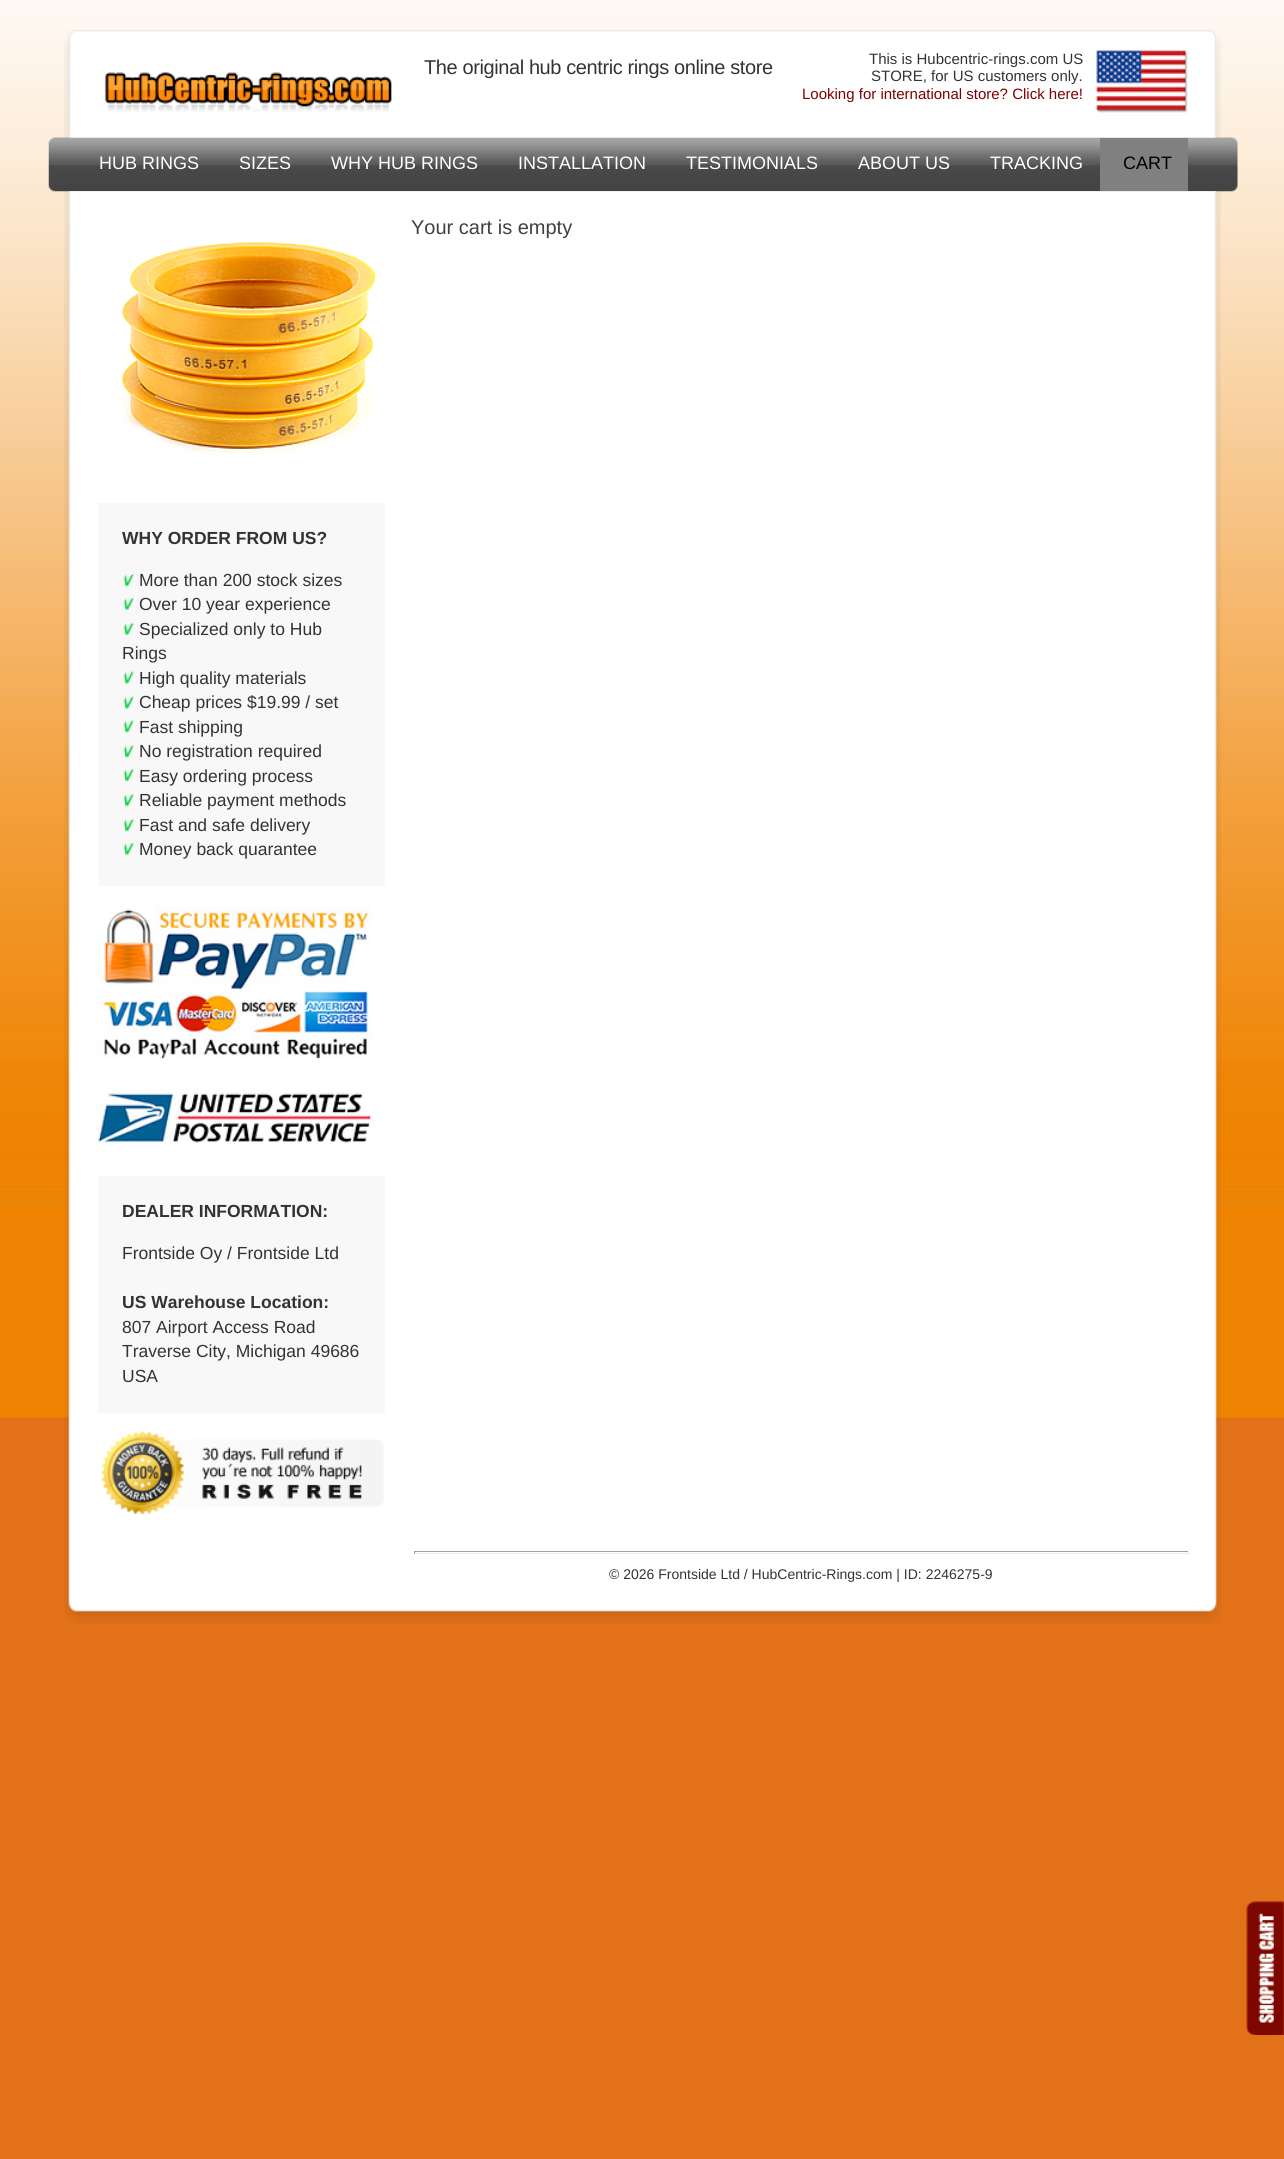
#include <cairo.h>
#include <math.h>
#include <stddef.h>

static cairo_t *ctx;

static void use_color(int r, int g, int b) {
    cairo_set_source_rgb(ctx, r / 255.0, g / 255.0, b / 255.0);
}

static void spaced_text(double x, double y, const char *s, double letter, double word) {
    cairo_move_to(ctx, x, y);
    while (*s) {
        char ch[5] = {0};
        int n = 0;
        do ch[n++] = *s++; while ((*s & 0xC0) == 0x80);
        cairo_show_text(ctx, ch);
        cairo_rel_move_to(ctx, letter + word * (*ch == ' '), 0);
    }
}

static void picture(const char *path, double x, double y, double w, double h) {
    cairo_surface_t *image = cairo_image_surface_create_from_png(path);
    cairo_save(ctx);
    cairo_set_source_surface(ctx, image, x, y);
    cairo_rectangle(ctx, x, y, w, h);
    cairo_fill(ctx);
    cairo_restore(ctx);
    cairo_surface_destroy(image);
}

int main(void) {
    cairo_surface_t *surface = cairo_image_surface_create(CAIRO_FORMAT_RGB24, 1284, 2159);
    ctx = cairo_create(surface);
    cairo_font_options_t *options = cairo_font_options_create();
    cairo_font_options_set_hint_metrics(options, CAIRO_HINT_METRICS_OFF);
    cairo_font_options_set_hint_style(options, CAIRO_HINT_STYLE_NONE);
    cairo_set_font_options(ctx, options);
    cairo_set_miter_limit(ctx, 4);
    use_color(227, 113, 25);
    cairo_paint(ctx);
    picture("img1.png", 0, 0, 1284, 1418);
    picture("img5.png", 48, 137, 1190, 55);
    picture("img2.png", 64, 30, 1157, 108);
    cairo_select_font_face(ctx, "Liberation Sans", CAIRO_FONT_SLANT_NORMAL, CAIRO_FONT_WEIGHT_NORMAL);
    cairo_set_font_size(ctx, 20);
    use_color(51, 51, 51);
    spaced_text(424, 74, "The original hub centric rings online store", -0.4, 0);
    cairo_set_font_size(ctx, 15);
    cairo_move_to(ctx, 869, 64);
    cairo_show_text(ctx, "This is Hubcentric-rings.com US");
    picture("img3.png", 1096, 50, 92, 63);
    cairo_move_to(ctx, 871, 81);
    cairo_show_text(ctx, "STORE, for US customers only.");
    use_color(128, 0, 0);
    cairo_move_to(ctx, 802, 99);
    cairo_show_text(ctx, "Looking for international store? Click here!");
    picture("img4.png", 104, 72, 288, 40);
    cairo_set_font_size(ctx, 18);
    use_color(255, 255, 255);
    cairo_move_to(ctx, 99, 169);
    cairo_show_text(ctx, "HUB RINGS");
    cairo_move_to(ctx, 239, 169);
    cairo_show_text(ctx, "SIZES");
    cairo_move_to(ctx, 331, 169);
    cairo_show_text(ctx, "WHY HUB RINGS");
    cairo_move_to(ctx, 518, 169);
    cairo_show_text(ctx, "INSTALLATION");
    cairo_move_to(ctx, 686, 169);
    cairo_show_text(ctx, "TESTIMONIALS");
    cairo_move_to(ctx, 858, 169);
    cairo_show_text(ctx, "ABOUT US");
    cairo_move_to(ctx, 990, 169);
    cairo_show_text(ctx, "TRACKING");
    use_color(128, 128, 128);
    cairo_rectangle(ctx, 1100, 138, 88, 53);
    cairo_fill(ctx);
    use_color(0, 0, 0);
    cairo_move_to(ctx, 1123, 169);
    cairo_show_text(ctx, "CART");
    picture("img6.png", 64, 191, 1157, 1409);
    cairo_set_font_size(ctx, 20);
    use_color(64, 64, 64);
    cairo_move_to(ctx, 411, 234);
    cairo_show_text(ctx, "Your cart is empty");
    picture("img7.png", 122, 242, 255, 213);
    use_color(248, 248, 248);
    cairo_rectangle(ctx, 98, 503, 287, 383);
    cairo_fill(ctx);
    cairo_select_font_face(ctx, "Liberation Sans", CAIRO_FONT_SLANT_NORMAL, CAIRO_FONT_WEIGHT_BOLD);
    cairo_set_font_size(ctx, 17.5);
    use_color(51, 51, 51);
    cairo_move_to(ctx, 122, 544);
    cairo_show_text(ctx, "WHY ORDER FROM US?");
    picture("img8.png", 123, 573, 11, 14);
    cairo_select_font_face(ctx, "Liberation Sans", CAIRO_FONT_SLANT_NORMAL, CAIRO_FONT_WEIGHT_NORMAL);
    cairo_move_to(ctx, 139, 586);
    cairo_show_text(ctx, "More than 200 stock sizes");
    picture("img9.png", 123, 597, 11, 13);
    cairo_move_to(ctx, 139, 610);
    cairo_show_text(ctx, "Over 10 year experience");
    picture("img9.png", 123, 622, 11, 13);
    cairo_move_to(ctx, 139, 635);
    cairo_show_text(ctx, "Specialized only to Hub");
    cairo_move_to(ctx, 122, 659);
    cairo_show_text(ctx, "Rings");
    picture("img10.png", 123, 671, 11, 13);
    cairo_move_to(ctx, 139, 684);
    cairo_show_text(ctx, "High quality materials");
    picture("img10.png", 123, 696, 11, 13);
    cairo_move_to(ctx, 139, 708);
    cairo_show_text(ctx, "Cheap prices $19.99 / set");
    picture("img11.png", 123, 720, 11, 13);
    cairo_move_to(ctx, 139, 733);
    cairo_show_text(ctx, "Fast shipping");
    picture("img11.png", 123, 745, 11, 13);
    cairo_move_to(ctx, 139, 757);
    cairo_show_text(ctx, "No registration required");
    picture("img8.png", 123, 768, 11, 14);
    cairo_move_to(ctx, 139, 782);
    cairo_show_text(ctx, "Easy ordering process");
    picture("img8.png", 123, 793, 11, 14);
    cairo_move_to(ctx, 139, 806);
    cairo_show_text(ctx, "Reliable payment methods");
    picture("img8.png", 123, 818, 11, 14);
    cairo_move_to(ctx, 139, 831);
    cairo_show_text(ctx, "Fast and safe delivery");
    picture("img9.png", 123, 842, 11, 13);
    cairo_move_to(ctx, 139, 855);
    cairo_show_text(ctx, "Money back quarantee");
    picture("img12.png", 97, 906, 276, 154);
    picture("img13.png", 97, 1092, 276, 52);
    use_color(248, 248, 248);
    cairo_rectangle(ctx, 98, 1176, 287, 237);
    cairo_fill(ctx);
    cairo_select_font_face(ctx, "Liberation Sans", CAIRO_FONT_SLANT_NORMAL, CAIRO_FONT_WEIGHT_BOLD);
    use_color(51, 51, 51);
    cairo_move_to(ctx, 122, 1217);
    cairo_show_text(ctx, "DEALER INFORMATION:");
    cairo_select_font_face(ctx, "Liberation Sans", CAIRO_FONT_SLANT_NORMAL, CAIRO_FONT_WEIGHT_NORMAL);
    cairo_move_to(ctx, 122, 1259);
    cairo_show_text(ctx, "Frontside Oy / Frontside Ltd");
    cairo_select_font_face(ctx, "Liberation Sans", CAIRO_FONT_SLANT_NORMAL, CAIRO_FONT_WEIGHT_BOLD);
    cairo_move_to(ctx, 122, 1308);
    cairo_show_text(ctx, "US Warehouse Location:");
    cairo_select_font_face(ctx, "Liberation Sans", CAIRO_FONT_SLANT_NORMAL, CAIRO_FONT_WEIGHT_NORMAL);
    cairo_move_to(ctx, 122, 1333);
    cairo_show_text(ctx, "807 Airport Access Road");
    cairo_move_to(ctx, 122, 1357);
    cairo_show_text(ctx, "Traverse City, Michigan 49686");
    cairo_move_to(ctx, 122, 1382);
    cairo_show_text(ctx, "USA");
    picture("img14.png", 100, 1430, 284, 86);
    use_color(159, 159, 159);
    cairo_rectangle(ctx, 414, 1551, 775, 1);
    cairo_fill(ctx);
    use_color(238, 238, 238);
    cairo_rectangle(ctx, 1188, 1551, 1, 3);
    cairo_fill(ctx);
    cairo_rectangle(ctx, 414, 1553, 775, 1);
    cairo_fill(ctx);
    use_color(159, 159, 159);
    cairo_rectangle(ctx, 414, 1551, 1, 3);
    cairo_fill(ctx);
    cairo_set_font_size(ctx, 14);
    use_color(51, 51, 51);
    cairo_move_to(ctx, 609, 1579);
    cairo_show_text(ctx, "© 2026 Frontside Ltd / HubCentric-Rings.com | ID: 2246275-9");
    picture("img15.png", 64, 1600, 1157, 24);
    picture("img16.png", 1246, 1901, 38, 134);
    cairo_surface_write_to_png(surface, "result.png");
    cairo_font_options_destroy(options);
    cairo_destroy(ctx);
    cairo_surface_destroy(surface);
    return 0;
}
